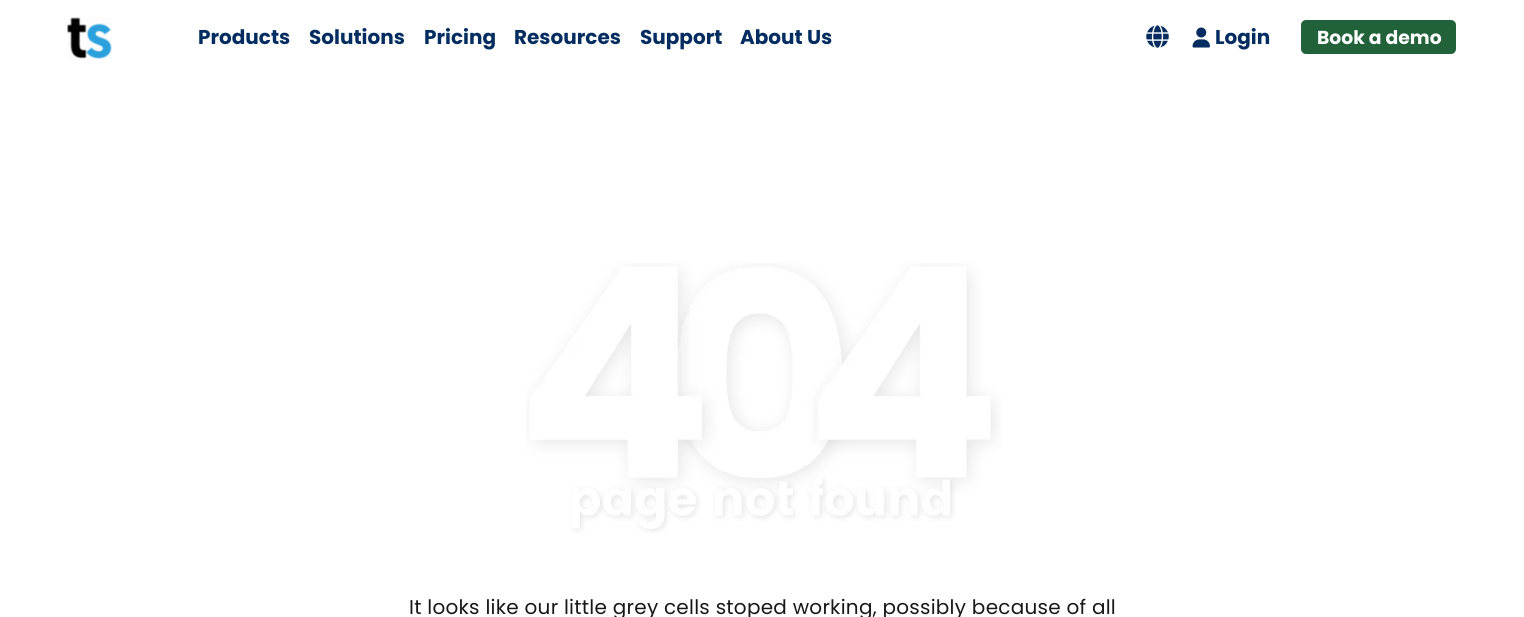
#include <cairo.h>
#include <math.h>
#include <stddef.h>

static cairo_t *ctx;

static void use_color(int r, int g, int b) {
    cairo_set_source_rgb(ctx, r / 255.0, g / 255.0, b / 255.0);
}

static void spaced_text(double x, double y, const char *s, double letter, double word) {
    cairo_move_to(ctx, x, y);
    while (*s) {
        char ch[5] = {0};
        int n = 0;
        do ch[n++] = *s++; while ((*s & 0xC0) == 0x80);
        cairo_show_text(ctx, ch);
        cairo_rel_move_to(ctx, letter + word * (*ch == ' '), 0);
    }
}

static void round_rect(double x, double y, double w, double h, double r) {
    cairo_new_sub_path(ctx);
    cairo_arc(ctx, x + w - r, y + h - r, r, 0, M_PI / 2);
    cairo_arc(ctx, x + r, y + h - r, r, M_PI / 2, M_PI);
    cairo_arc(ctx, x + r, y + r, r, M_PI, 1.5 * M_PI);
    cairo_arc(ctx, x + w - r, y + r, r, 1.5 * M_PI, 2 * M_PI);
    cairo_close_path(ctx);
}

static void picture(const char *path, double x, double y, double w, double h) {
    cairo_surface_t *image = cairo_image_surface_create_from_png(path);
    cairo_save(ctx);
    cairo_set_source_surface(ctx, image, x, y);
    cairo_rectangle(ctx, x, y, w, h);
    cairo_fill(ctx);
    cairo_restore(ctx);
    cairo_surface_destroy(image);
}

int main(void) {
    cairo_surface_t *surface = cairo_image_surface_create(CAIRO_FORMAT_RGB24, 1524, 617);
    ctx = cairo_create(surface);
    cairo_font_options_t *options = cairo_font_options_create();
    cairo_font_options_set_hint_metrics(options, CAIRO_HINT_METRICS_OFF);
    cairo_font_options_set_hint_style(options, CAIRO_HINT_STYLE_NONE);
    cairo_set_font_options(ctx, options);
    cairo_set_miter_limit(ctx, 4);
    use_color(255, 255, 255);
    cairo_paint(ctx);
    picture("img1.png", 67, 17, 45, 42);
    cairo_select_font_face(ctx, "Poppins", CAIRO_FONT_SLANT_NORMAL, CAIRO_FONT_WEIGHT_BOLD);
    cairo_set_font_size(ctx, 20);
    use_color(3, 45, 96);
    cairo_move_to(ctx, 198, 44);
    cairo_show_text(ctx, "Products");
    cairo_move_to(ctx, 309, 44);
    cairo_show_text(ctx, "Solutions");
    cairo_move_to(ctx, 424, 44);
    cairo_show_text(ctx, "Pricing");
    cairo_move_to(ctx, 514, 44);
    cairo_show_text(ctx, "Resources");
    cairo_move_to(ctx, 640, 44);
    cairo_show_text(ctx, "Support");
    cairo_move_to(ctx, 740, 44);
    cairo_show_text(ctx, "About Us");
    picture("img2.png", 1146, 25, 23, 23);
    picture("img3.png", 1192, 27, 18, 21);
    cairo_move_to(ctx, 1215, 44);
    cairo_show_text(ctx, "Login");
    use_color(34, 98, 59);
    round_rect(1301, 20, 155, 34, 5);
    cairo_fill(ctx);
    cairo_set_font_size(ctx, 18.75);
    use_color(255, 255, 255);
    cairo_move_to(ctx, 1317, 44);
    cairo_show_text(ctx, "Book a demo");
    picture("img4.png", 526, 263, 475, 270);
    cairo_select_font_face(ctx, "Poppins", CAIRO_FONT_SLANT_NORMAL, CAIRO_FONT_WEIGHT_NORMAL);
    cairo_set_font_size(ctx, 20);
    use_color(24, 24, 24);
    spaced_text(409, 614, "It looks like our little grey cells stoped working, possibly because of all", 0.25, 0);
    cairo_surface_write_to_png(surface, "result.png");
    cairo_font_options_destroy(options);
    cairo_destroy(ctx);
    cairo_surface_destroy(surface);
    return 0;
}
